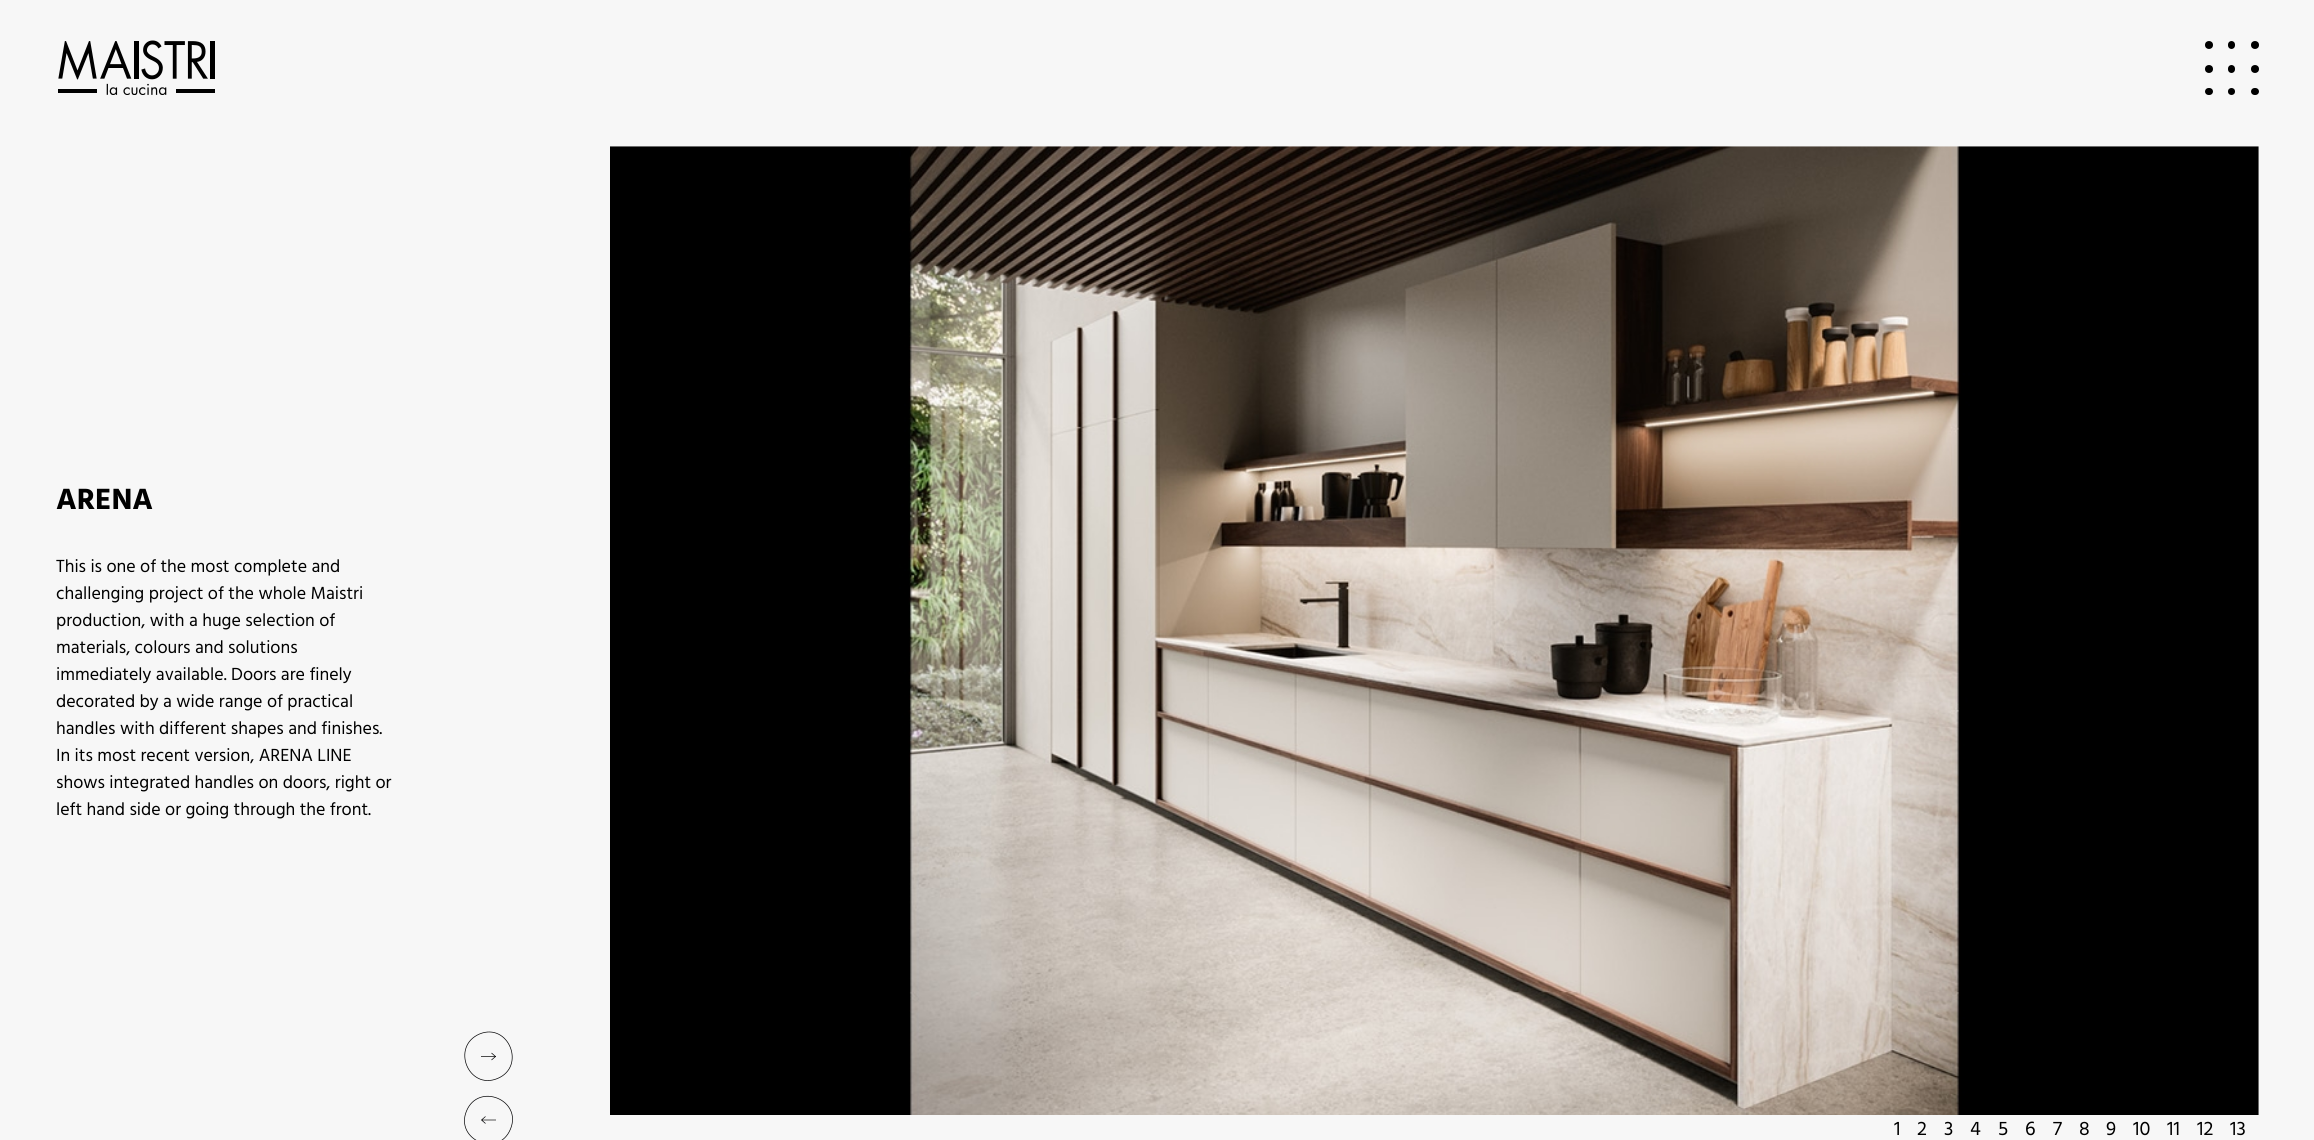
#include <cairo.h>
#include <math.h>
#include <stddef.h>

static cairo_t *ctx;

static void use_color(int r, int g, int b) {
    cairo_set_source_rgb(ctx, r / 255.0, g / 255.0, b / 255.0);
}

static void round_rect(double x, double y, double w, double h, double r) {
    cairo_new_sub_path(ctx);
    cairo_arc(ctx, x + w - r, y + h - r, r, 0, M_PI / 2);
    cairo_arc(ctx, x + r, y + h - r, r, M_PI / 2, M_PI);
    cairo_arc(ctx, x + r, y + r, r, M_PI, 1.5 * M_PI);
    cairo_arc(ctx, x + w - r, y + r, r, 1.5 * M_PI, 2 * M_PI);
    cairo_close_path(ctx);
}

static void picture(const char *path, double x, double y, double w, double h) {
    cairo_surface_t *image = cairo_image_surface_create_from_png(path);
    cairo_save(ctx);
    cairo_set_source_surface(ctx, image, x, y);
    cairo_rectangle(ctx, x, y, w, h);
    cairo_fill(ctx);
    cairo_restore(ctx);
    cairo_surface_destroy(image);
}

int main(void) {
    cairo_surface_t *surface = cairo_image_surface_create(CAIRO_FORMAT_RGB24, 2314, 1140);
    ctx = cairo_create(surface);
    cairo_font_options_t *options = cairo_font_options_create();
    cairo_font_options_set_hint_metrics(options, CAIRO_HINT_METRICS_OFF);
    cairo_font_options_set_hint_style(options, CAIRO_HINT_STYLE_NONE);
    cairo_set_font_options(ctx, options);
    cairo_set_miter_limit(ctx, 4);
    use_color(247, 247, 247);
    cairo_paint(ctx);
    picture("img1.png", 58, 40, 157, 55);
    use_color(0, 0, 0);
    cairo_arc(ctx, 2209, 45, 4, 0, 2 * M_PI);
    cairo_fill(ctx);
    round_rect(2228, 41, 7, 8, 3.5);
    cairo_fill(ctx);
    cairo_arc(ctx, 2255, 45, 4, 0, 2 * M_PI);
    cairo_fill(ctx);
    cairo_arc(ctx, 2209, 69, 4, 0, 2 * M_PI);
    cairo_fill(ctx);
    round_rect(2228, 65, 7, 8, 3.5);
    cairo_fill(ctx);
    cairo_arc(ctx, 2255, 69, 4, 0, 2 * M_PI);
    cairo_fill(ctx);
    round_rect(2205, 88, 8, 7, 3.5);
    cairo_fill(ctx);
    cairo_arc(ctx, 2231.5, 91.5, 3.5, 0, 2 * M_PI);
    cairo_fill(ctx);
    round_rect(2251, 88, 8, 7, 3.5);
    cairo_fill(ctx);
    cairo_select_font_face(ctx, "Hind", CAIRO_FONT_SLANT_NORMAL, CAIRO_FONT_WEIGHT_BOLD);
    cairo_set_font_size(ctx, 30);
    cairo_move_to(ctx, 56, 509);
    cairo_show_text(ctx, "ARENA");
    cairo_select_font_face(ctx, "Hind", CAIRO_FONT_SLANT_NORMAL, CAIRO_FONT_WEIGHT_NORMAL);
    cairo_set_font_size(ctx, 18);
    cairo_move_to(ctx, 56, 572);
    cairo_show_text(ctx, "This is one of the most complete and");
    cairo_move_to(ctx, 56, 599);
    cairo_show_text(ctx, "challenging project of the whole Maistri");
    cairo_move_to(ctx, 56, 626);
    cairo_show_text(ctx, "production, with a huge selection of");
    cairo_move_to(ctx, 56, 653);
    cairo_show_text(ctx, "materials, colours and solutions");
    cairo_move_to(ctx, 56, 680);
    cairo_show_text(ctx, "immediately available. Doors are finely");
    cairo_move_to(ctx, 56, 707);
    cairo_show_text(ctx, "decorated by a wide range of practical");
    cairo_move_to(ctx, 56, 734);
    cairo_show_text(ctx, "handles with different shapes and finishes.");
    cairo_move_to(ctx, 56, 761);
    cairo_show_text(ctx, "In its most recent version, ARENA LINE");
    cairo_move_to(ctx, 56, 788);
    cairo_show_text(ctx, "shows integrated handles on doors, right or");
    cairo_move_to(ctx, 56, 815);
    cairo_show_text(ctx, "left hand side or going through the front.");
    use_color(76, 76, 76);
    cairo_rectangle(ctx, 481, 1056, 15, 1);
    cairo_fill(ctx);
    cairo_new_path(ctx);
    cairo_move_to(ctx, 491.5, 1060);
    cairo_line_to(ctx, 495.5, 1056.5);
    cairo_line_to(ctx, 491.5, 1053);
    cairo_move_to(ctx, 479.5, 1034);
    cairo_curve_to(ctx, 508.5, 1022, 526.5, 1066.5, 497.5, 1078.5);
    cairo_curve_to(ctx, 468.5, 1090.5, 450.5, 1046.5, 479.5, 1034);
    cairo_close_path(ctx);
    use_color(2, 2, 3);
    cairo_set_line_width(ctx, 0.7);
    cairo_stroke(ctx);
    cairo_new_path(ctx);
    cairo_move_to(ctx, 496, 1120);
    cairo_line_to(ctx, 481.5, 1120);
    cairo_move_to(ctx, 485.5, 1123.5);
    cairo_line_to(ctx, 481.5, 1120);
    cairo_line_to(ctx, 485.5, 1116.5);
    cairo_move_to(ctx, 466.5, 1111);
    cairo_curve_to(ctx, 478.5, 1082, 522.5, 1100, 510.5, 1129);
    cairo_curve_to(ctx, 498.5, 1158.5, 454.5, 1140, 466.5, 1111);
    cairo_close_path(ctx);
    cairo_stroke(ctx);
    picture("img2.png", 610, 146, 1649, 969);
    cairo_set_font_size(ctx, 20);
    use_color(0, 0, 0);
    cairo_move_to(ctx, 1894, 1135);
    cairo_show_text(ctx, "1");
    cairo_move_to(ctx, 1917, 1135);
    cairo_show_text(ctx, "2");
    cairo_move_to(ctx, 1944, 1135);
    cairo_show_text(ctx, "3");
    cairo_move_to(ctx, 1970, 1135);
    cairo_show_text(ctx, "4");
    cairo_move_to(ctx, 1998, 1135);
    cairo_show_text(ctx, "5");
    cairo_move_to(ctx, 2025, 1135);
    cairo_show_text(ctx, "6");
    cairo_move_to(ctx, 2053, 1135);
    cairo_show_text(ctx, "7");
    cairo_move_to(ctx, 2079, 1135);
    cairo_show_text(ctx, "8");
    cairo_move_to(ctx, 2106, 1135);
    cairo_show_text(ctx, "9");
    cairo_move_to(ctx, 2133, 1135);
    cairo_show_text(ctx, "10");
    cairo_move_to(ctx, 2167, 1135);
    cairo_show_text(ctx, "11");
    cairo_move_to(ctx, 2197, 1135);
    cairo_show_text(ctx, "12");
    cairo_move_to(ctx, 2230, 1135);
    cairo_show_text(ctx, "13");
    cairo_surface_write_to_png(surface, "result.png");
    cairo_font_options_destroy(options);
    cairo_destroy(ctx);
    cairo_surface_destroy(surface);
    return 0;
}
